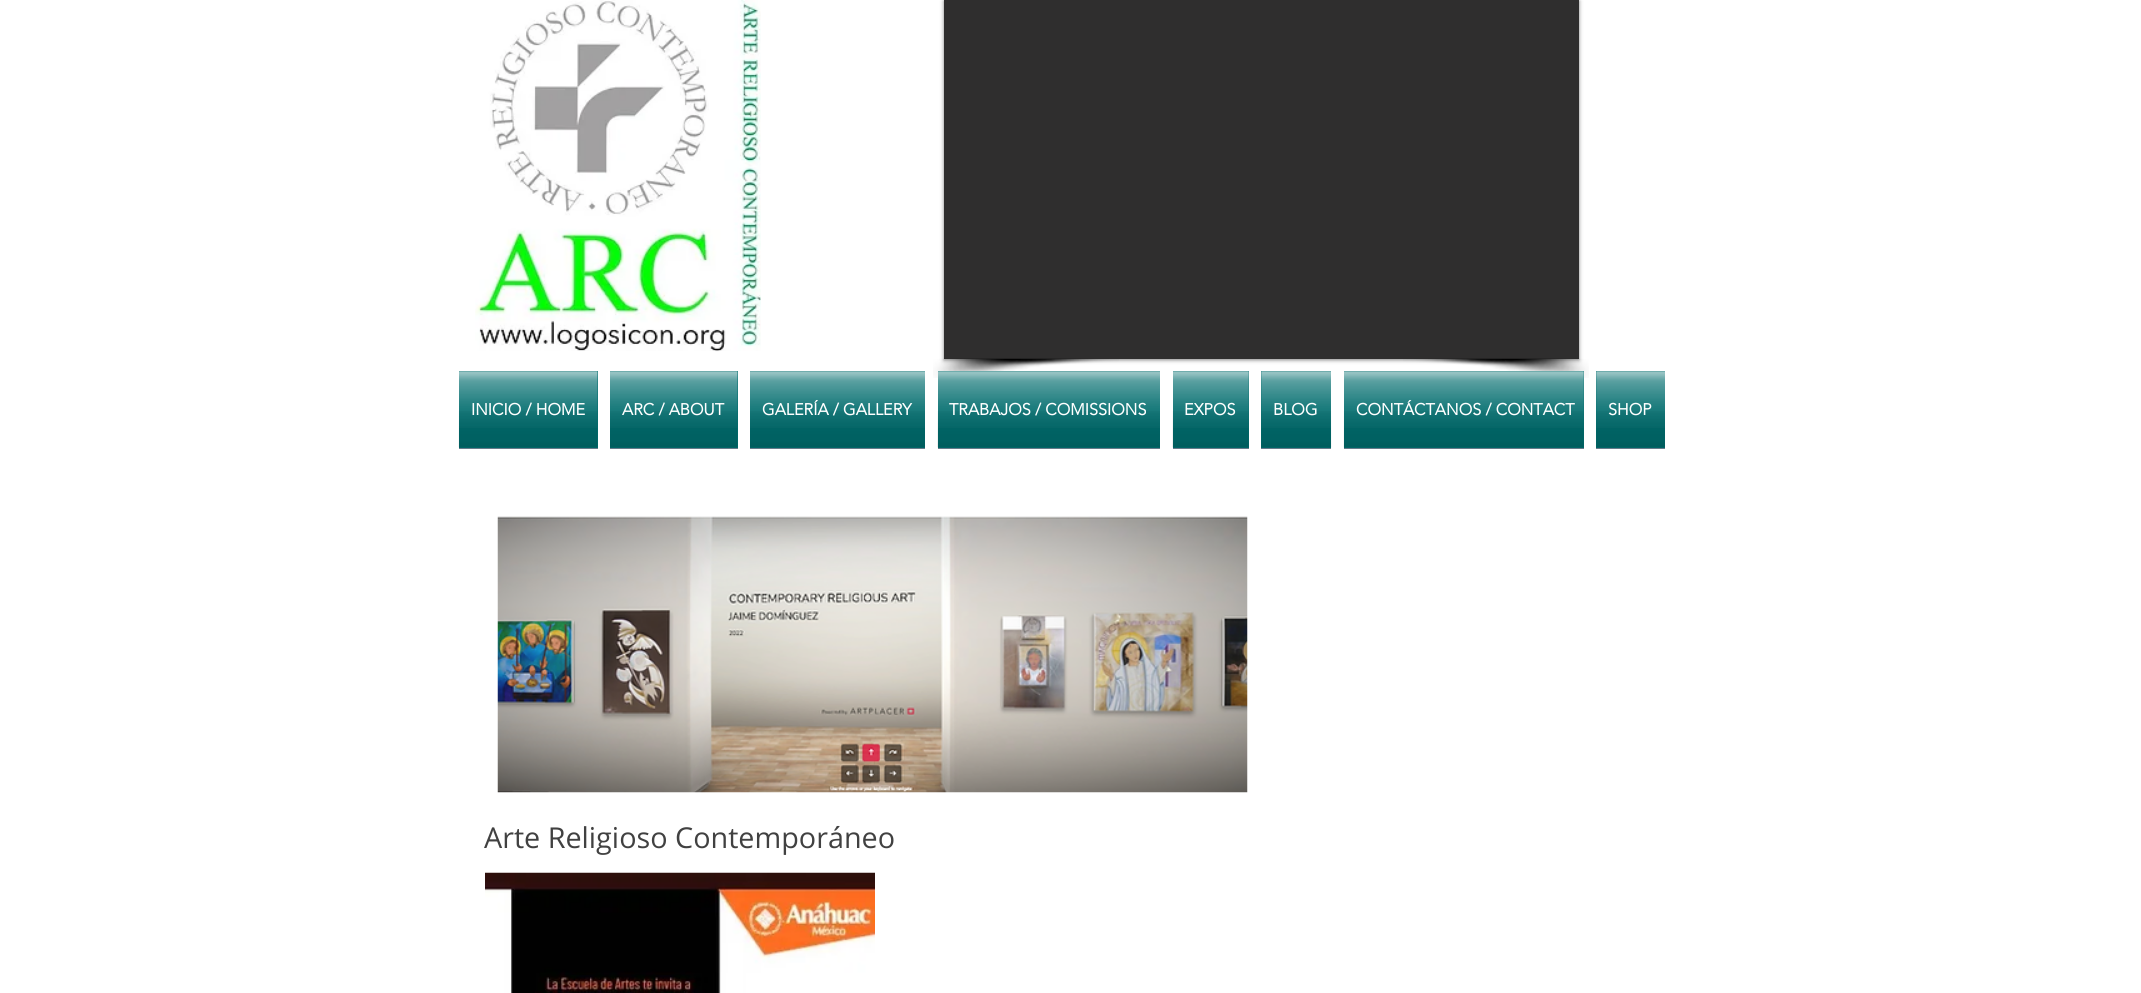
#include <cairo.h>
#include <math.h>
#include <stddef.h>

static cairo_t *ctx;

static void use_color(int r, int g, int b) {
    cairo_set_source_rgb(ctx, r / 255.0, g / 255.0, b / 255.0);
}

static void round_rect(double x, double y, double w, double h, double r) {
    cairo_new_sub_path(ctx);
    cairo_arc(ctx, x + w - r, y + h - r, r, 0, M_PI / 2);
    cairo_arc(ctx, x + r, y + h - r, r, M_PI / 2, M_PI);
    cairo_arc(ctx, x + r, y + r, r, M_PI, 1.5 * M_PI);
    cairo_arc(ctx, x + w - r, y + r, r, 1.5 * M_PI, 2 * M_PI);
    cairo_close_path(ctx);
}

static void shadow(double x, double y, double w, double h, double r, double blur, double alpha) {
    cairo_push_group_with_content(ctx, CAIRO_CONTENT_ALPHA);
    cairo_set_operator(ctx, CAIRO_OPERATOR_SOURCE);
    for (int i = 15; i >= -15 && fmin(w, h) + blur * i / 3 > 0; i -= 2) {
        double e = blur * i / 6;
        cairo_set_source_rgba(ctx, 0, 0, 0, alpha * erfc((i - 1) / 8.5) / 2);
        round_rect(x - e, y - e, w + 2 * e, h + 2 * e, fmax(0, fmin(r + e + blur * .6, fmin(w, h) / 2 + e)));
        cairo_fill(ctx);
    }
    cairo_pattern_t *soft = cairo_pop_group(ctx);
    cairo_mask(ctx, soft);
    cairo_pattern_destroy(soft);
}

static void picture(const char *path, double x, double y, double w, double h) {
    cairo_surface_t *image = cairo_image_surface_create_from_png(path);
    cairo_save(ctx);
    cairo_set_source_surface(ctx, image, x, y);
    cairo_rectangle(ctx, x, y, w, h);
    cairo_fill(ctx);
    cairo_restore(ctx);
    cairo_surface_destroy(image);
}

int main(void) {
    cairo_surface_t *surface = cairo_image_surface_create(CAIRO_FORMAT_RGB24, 2141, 993);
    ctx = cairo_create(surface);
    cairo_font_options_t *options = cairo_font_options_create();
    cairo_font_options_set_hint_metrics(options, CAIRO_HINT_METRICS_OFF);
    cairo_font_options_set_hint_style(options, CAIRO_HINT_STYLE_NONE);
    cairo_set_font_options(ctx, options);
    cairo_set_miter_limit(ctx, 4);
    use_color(255, 255, 255);
    cairo_paint(ctx);
    picture("img1.png", 475, 0, 286, 352);
    use_color(0, 0, 0);
    shadow(944, 1, 635, 359, 0, 2, 0.5);
    use_color(47, 46, 46);
    cairo_rectangle(ctx, 944, 0, 635, 359);
    cairo_fill(ctx);
    picture("img2.png", 933, 358, 186, 20);
    picture("img3.png", 1403, 358, 186, 20);
    use_color(103, 122, 137);
    cairo_new_path(ctx);
    cairo_move_to(ctx, 459, 448);
    cairo_line_to(ctx, 459, 449);
    cairo_line_to(ctx, 598, 449);
    cairo_line_to(ctx, 598, 373);
    cairo_line_to(ctx, 598, 448);
    cairo_close_path(ctx);
    cairo_fill(ctx);
    use_color(0, 108, 109);
    cairo_rectangle(ctx, 459, 371, 139, 77);
    cairo_fill(ctx);
    picture("img4.png", 459, 371, 139, 57);
    picture("img5.png", 458, 411, 140, 37);
    cairo_select_font_face(ctx, "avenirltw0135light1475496", CAIRO_FONT_SLANT_NORMAL, CAIRO_FONT_WEIGHT_BOLD);
    cairo_set_font_size(ctx, 16.25);
    use_color(255, 255, 255);
    cairo_move_to(ctx, 471, 415);
    cairo_show_text(ctx, "INICIO / HOME");
    use_color(103, 122, 137);
    cairo_new_path(ctx);
    cairo_move_to(ctx, 610, 448);
    cairo_line_to(ctx, 610, 449);
    cairo_line_to(ctx, 738, 449);
    cairo_line_to(ctx, 738, 373);
    cairo_line_to(ctx, 738, 448);
    cairo_close_path(ctx);
    cairo_fill(ctx);
    use_color(0, 108, 109);
    cairo_rectangle(ctx, 610, 371, 128, 77);
    cairo_fill(ctx);
    picture("img6.png", 610, 371, 128, 57);
    picture("img7.png", 610, 411, 128, 37);
    use_color(255, 255, 255);
    cairo_move_to(ctx, 622, 415);
    cairo_show_text(ctx, "ARC / ABOUT");
    use_color(103, 122, 137);
    cairo_rectangle(ctx, 750, 448, 175, 1);
    cairo_fill(ctx);
    use_color(0, 108, 109);
    cairo_rectangle(ctx, 750, 371, 175, 77);
    cairo_fill(ctx);
    picture("img8.png", 750, 371, 175, 57);
    picture("img9.png", 750, 411, 175, 37);
    use_color(255, 255, 255);
    cairo_move_to(ctx, 762, 415);
    cairo_show_text(ctx, "GALERÍA / GALLERY");
    use_color(103, 122, 137);
    cairo_rectangle(ctx, 938, 448, 222, 1);
    cairo_fill(ctx);
    use_color(0, 108, 109);
    cairo_rectangle(ctx, 938, 371, 222, 77);
    cairo_fill(ctx);
    picture("img10.png", 938, 371, 222, 57);
    picture("img11.png", 937, 411, 223, 37);
    use_color(255, 255, 255);
    cairo_move_to(ctx, 949, 415);
    cairo_show_text(ctx, "TRABAJOS / COMISSIONS");
    use_color(103, 122, 137);
    cairo_new_path(ctx);
    cairo_move_to(ctx, 1173, 448);
    cairo_line_to(ctx, 1173, 449);
    cairo_line_to(ctx, 1249, 449);
    cairo_line_to(ctx, 1249, 373);
    cairo_line_to(ctx, 1249, 448);
    cairo_close_path(ctx);
    cairo_fill(ctx);
    use_color(0, 108, 109);
    cairo_rectangle(ctx, 1173, 371, 76, 77);
    cairo_fill(ctx);
    picture("img12.png", 1173, 371, 76, 57);
    picture("img13.png", 1172, 411, 77, 37);
    use_color(255, 255, 255);
    cairo_move_to(ctx, 1184, 415);
    cairo_show_text(ctx, "EXPOS");
    use_color(103, 122, 137);
    cairo_new_path(ctx);
    cairo_move_to(ctx, 1261, 373);
    cairo_line_to(ctx, 1261, 449);
    cairo_line_to(ctx, 1331, 449);
    cairo_line_to(ctx, 1331, 448);
    cairo_line_to(ctx, 1261, 448);
    cairo_close_path(ctx);
    cairo_fill(ctx);
    use_color(0, 108, 109);
    cairo_rectangle(ctx, 1261, 371, 70, 77);
    cairo_fill(ctx);
    picture("img14.png", 1261, 371, 70, 57);
    picture("img15.png", 1261, 411, 71, 37);
    use_color(255, 255, 255);
    cairo_move_to(ctx, 1273, 415);
    cairo_show_text(ctx, "BLOG");
    use_color(103, 122, 137);
    cairo_new_path(ctx);
    cairo_move_to(ctx, 1344, 448);
    cairo_line_to(ctx, 1344, 449);
    cairo_line_to(ctx, 1584, 449);
    cairo_line_to(ctx, 1584, 373);
    cairo_line_to(ctx, 1584, 448);
    cairo_close_path(ctx);
    cairo_fill(ctx);
    use_color(0, 108, 109);
    cairo_rectangle(ctx, 1344, 371, 240, 77);
    cairo_fill(ctx);
    picture("img16.png", 1344, 371, 240, 57);
    picture("img17.png", 1343, 411, 241, 37);
    use_color(255, 255, 255);
    cairo_move_to(ctx, 1356, 415);
    cairo_show_text(ctx, "CONTÁCTANOS / CONTACT");
    use_color(103, 122, 137);
    cairo_new_path(ctx);
    cairo_move_to(ctx, 1596, 373);
    cairo_line_to(ctx, 1596, 449);
    cairo_line_to(ctx, 1665, 449);
    cairo_line_to(ctx, 1665, 448);
    cairo_line_to(ctx, 1596, 448);
    cairo_close_path(ctx);
    cairo_fill(ctx);
    use_color(0, 108, 109);
    cairo_rectangle(ctx, 1596, 371, 69, 77);
    cairo_fill(ctx);
    picture("img18.png", 1596, 371, 69, 57);
    picture("img19.png", 1596, 411, 69, 37);
    use_color(255, 255, 255);
    cairo_move_to(ctx, 1608, 415);
    cairo_show_text(ctx, "SHOP");
    picture("img20.png", 497, 516, 751, 277);
    cairo_select_font_face(ctx, "Open Sans", CAIRO_FONT_SLANT_NORMAL, CAIRO_FONT_WEIGHT_NORMAL);
    cairo_set_font_size(ctx, 28.75);
    use_color(65, 65, 65);
    cairo_move_to(ctx, 484, 848);
    cairo_show_text(ctx, "Arte Religioso Contemporáneo");
    picture("img21.png", 485, 872, 390, 121);
    cairo_surface_write_to_png(surface, "result.png");
    cairo_font_options_destroy(options);
    cairo_destroy(ctx);
    cairo_surface_destroy(surface);
    return 0;
}
